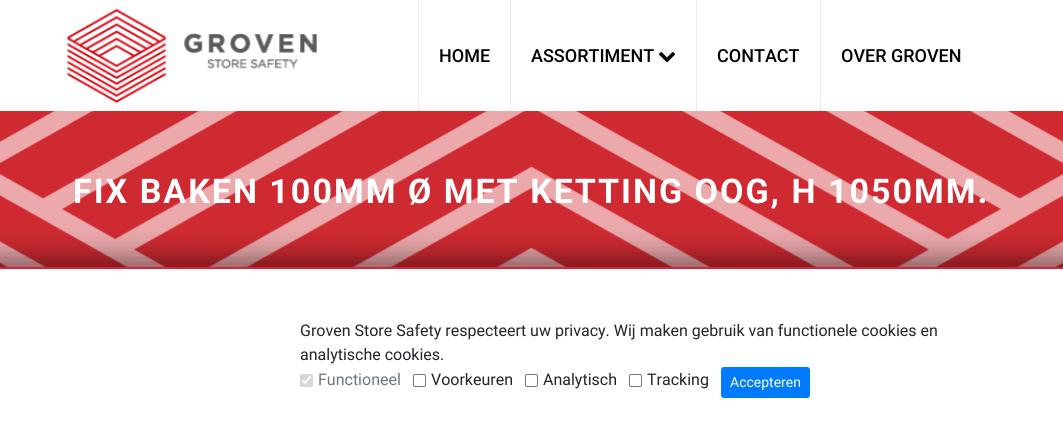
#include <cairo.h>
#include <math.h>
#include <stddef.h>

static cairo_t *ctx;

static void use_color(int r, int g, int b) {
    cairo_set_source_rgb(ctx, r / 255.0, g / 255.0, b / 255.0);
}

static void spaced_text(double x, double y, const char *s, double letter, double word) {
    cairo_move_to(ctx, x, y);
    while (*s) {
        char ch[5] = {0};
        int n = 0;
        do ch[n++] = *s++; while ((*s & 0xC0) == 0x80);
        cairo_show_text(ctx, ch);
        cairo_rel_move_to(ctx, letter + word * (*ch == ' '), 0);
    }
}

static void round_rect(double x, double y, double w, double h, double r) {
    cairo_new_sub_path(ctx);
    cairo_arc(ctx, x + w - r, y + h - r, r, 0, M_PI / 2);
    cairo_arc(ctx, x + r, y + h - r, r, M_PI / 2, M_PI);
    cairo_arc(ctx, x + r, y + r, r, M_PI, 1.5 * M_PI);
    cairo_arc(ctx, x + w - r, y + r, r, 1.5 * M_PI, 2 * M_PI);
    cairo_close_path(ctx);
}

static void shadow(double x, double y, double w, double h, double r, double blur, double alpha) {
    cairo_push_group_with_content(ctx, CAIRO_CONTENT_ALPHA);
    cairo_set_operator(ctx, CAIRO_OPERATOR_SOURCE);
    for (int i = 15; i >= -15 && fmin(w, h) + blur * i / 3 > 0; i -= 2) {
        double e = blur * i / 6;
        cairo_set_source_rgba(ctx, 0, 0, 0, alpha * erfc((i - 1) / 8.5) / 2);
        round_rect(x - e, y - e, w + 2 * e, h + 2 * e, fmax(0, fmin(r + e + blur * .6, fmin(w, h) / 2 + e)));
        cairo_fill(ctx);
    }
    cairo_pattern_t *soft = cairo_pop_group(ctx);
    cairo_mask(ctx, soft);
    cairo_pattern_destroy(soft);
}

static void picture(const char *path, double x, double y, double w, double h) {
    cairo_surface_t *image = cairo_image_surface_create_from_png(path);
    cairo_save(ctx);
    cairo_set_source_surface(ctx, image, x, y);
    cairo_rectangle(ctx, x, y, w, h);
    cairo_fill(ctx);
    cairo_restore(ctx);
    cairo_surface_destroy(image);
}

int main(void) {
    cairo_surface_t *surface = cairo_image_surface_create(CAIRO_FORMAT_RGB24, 1063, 448);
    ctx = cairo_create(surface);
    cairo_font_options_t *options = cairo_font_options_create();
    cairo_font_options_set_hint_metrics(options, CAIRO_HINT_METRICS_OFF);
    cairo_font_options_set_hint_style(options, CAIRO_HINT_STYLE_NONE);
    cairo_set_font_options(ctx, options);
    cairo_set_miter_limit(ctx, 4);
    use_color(255, 255, 255);
    cairo_paint(ctx);
    picture("img1.png", 66, 8, 251, 96);
    use_color(235, 235, 235);
    cairo_rectangle(ctx, 418, 0, 1, 111);
    cairo_fill(ctx);
    cairo_select_font_face(ctx, "Roboto Medium", CAIRO_FONT_SLANT_NORMAL, CAIRO_FONT_WEIGHT_NORMAL);
    cairo_set_font_size(ctx, 18);
    use_color(0, 0, 0);
    cairo_move_to(ctx, 439, 62);
    cairo_show_text(ctx, "HOME");
    use_color(235, 235, 235);
    cairo_rectangle(ctx, 510, 0, 1, 111);
    cairo_fill(ctx);
    use_color(0, 0, 0);
    cairo_move_to(ctx, 531, 62);
    cairo_show_text(ctx, "ASSORTIMENT");
    picture("img2.png", 658, 52, 18, 11);
    use_color(235, 235, 235);
    cairo_rectangle(ctx, 696, 0, 1, 111);
    cairo_fill(ctx);
    use_color(0, 0, 0);
    cairo_move_to(ctx, 717, 62);
    cairo_show_text(ctx, "CONTACT");
    use_color(235, 235, 235);
    cairo_rectangle(ctx, 820, 0, 1, 111);
    cairo_fill(ctx);
    use_color(0, 0, 0);
    cairo_move_to(ctx, 841, 62);
    cairo_show_text(ctx, "OVER GROVEN");
    use_color(207, 42, 49);
    cairo_rectangle(ctx, 0, 111, 1063, 156);
    cairo_fill(ctx);
    picture("img3.png", 0, 111, 1063, 156);
    cairo_select_font_face(ctx, "Roboto", CAIRO_FONT_SLANT_NORMAL, CAIRO_FONT_WEIGHT_BOLD);
    cairo_set_font_size(ctx, 34);
    use_color(255, 255, 255);
    spaced_text(73, 203, "FIX BAKEN 100MM Ø MET KETTING OOG, H 1050MM.", 2, 0);
    use_color(0, 0, 0);
    shadow(-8, 259, 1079, 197, 0, 15, 0.5);
    use_color(255, 255, 255);
    cairo_rectangle(ctx, 0, 269, 1063, 179);
    cairo_fill(ctx);
    use_color(207, 42, 49);
    cairo_rectangle(ctx, 0, 267, 1063, 2);
    cairo_fill(ctx);
    cairo_select_font_face(ctx, "Roboto", CAIRO_FONT_SLANT_NORMAL, CAIRO_FONT_WEIGHT_NORMAL);
    cairo_set_font_size(ctx, 16);
    use_color(33, 37, 41);
    cairo_move_to(ctx, 300, 336);
    cairo_show_text(ctx, "Groven Store Safety respecteert uw privacy. Wij maken gebruik van functionele cookies en");
    cairo_move_to(ctx, 300, 360);
    cairo_show_text(ctx, "analytische cookies.");
    use_color(214, 214, 214);
    round_rect(300, 374, 13, 13, 2);
    cairo_fill(ctx);
    cairo_new_path(ctx);
    cairo_move_to(ctx, 302.5, 380.5);
    cairo_line_to(ctx, 305, 383);
    cairo_line_to(ctx, 310.5, 376.5);
    use_color(255, 255, 255);
    cairo_set_line_width(ctx, 2.1);
    cairo_stroke(ctx);
    use_color(108, 117, 125);
    cairo_move_to(ctx, 318, 385);
    cairo_show_text(ctx, "Functioneel");
    round_rect(413.5, 374.5, 12, 12, 1.5);
    use_color(118, 118, 118);
    cairo_set_line_width(ctx, 1);
    cairo_stroke(ctx);
    use_color(33, 37, 41);
    cairo_move_to(ctx, 431, 385);
    cairo_show_text(ctx, "Voorkeuren");
    round_rect(525.5, 374.5, 12, 12, 1.5);
    use_color(118, 118, 118);
    cairo_stroke(ctx);
    use_color(33, 37, 41);
    cairo_move_to(ctx, 543, 385);
    cairo_show_text(ctx, "Analytisch");
    round_rect(629.5, 374.5, 12, 12, 1.5);
    use_color(118, 118, 118);
    cairo_stroke(ctx);
    use_color(33, 37, 41);
    cairo_move_to(ctx, 647, 385);
    cairo_show_text(ctx, "Tracking");
    use_color(0, 123, 255);
    round_rect(721.5, 367.5, 88, 30, 2.5);
    cairo_fill_preserve(ctx);
    cairo_stroke(ctx);
    cairo_set_font_size(ctx, 14);
    use_color(255, 255, 255);
    cairo_move_to(ctx, 730, 387);
    cairo_show_text(ctx, "Accepteren");
    cairo_surface_write_to_png(surface, "result.png");
    cairo_font_options_destroy(options);
    cairo_destroy(ctx);
    cairo_surface_destroy(surface);
    return 0;
}
